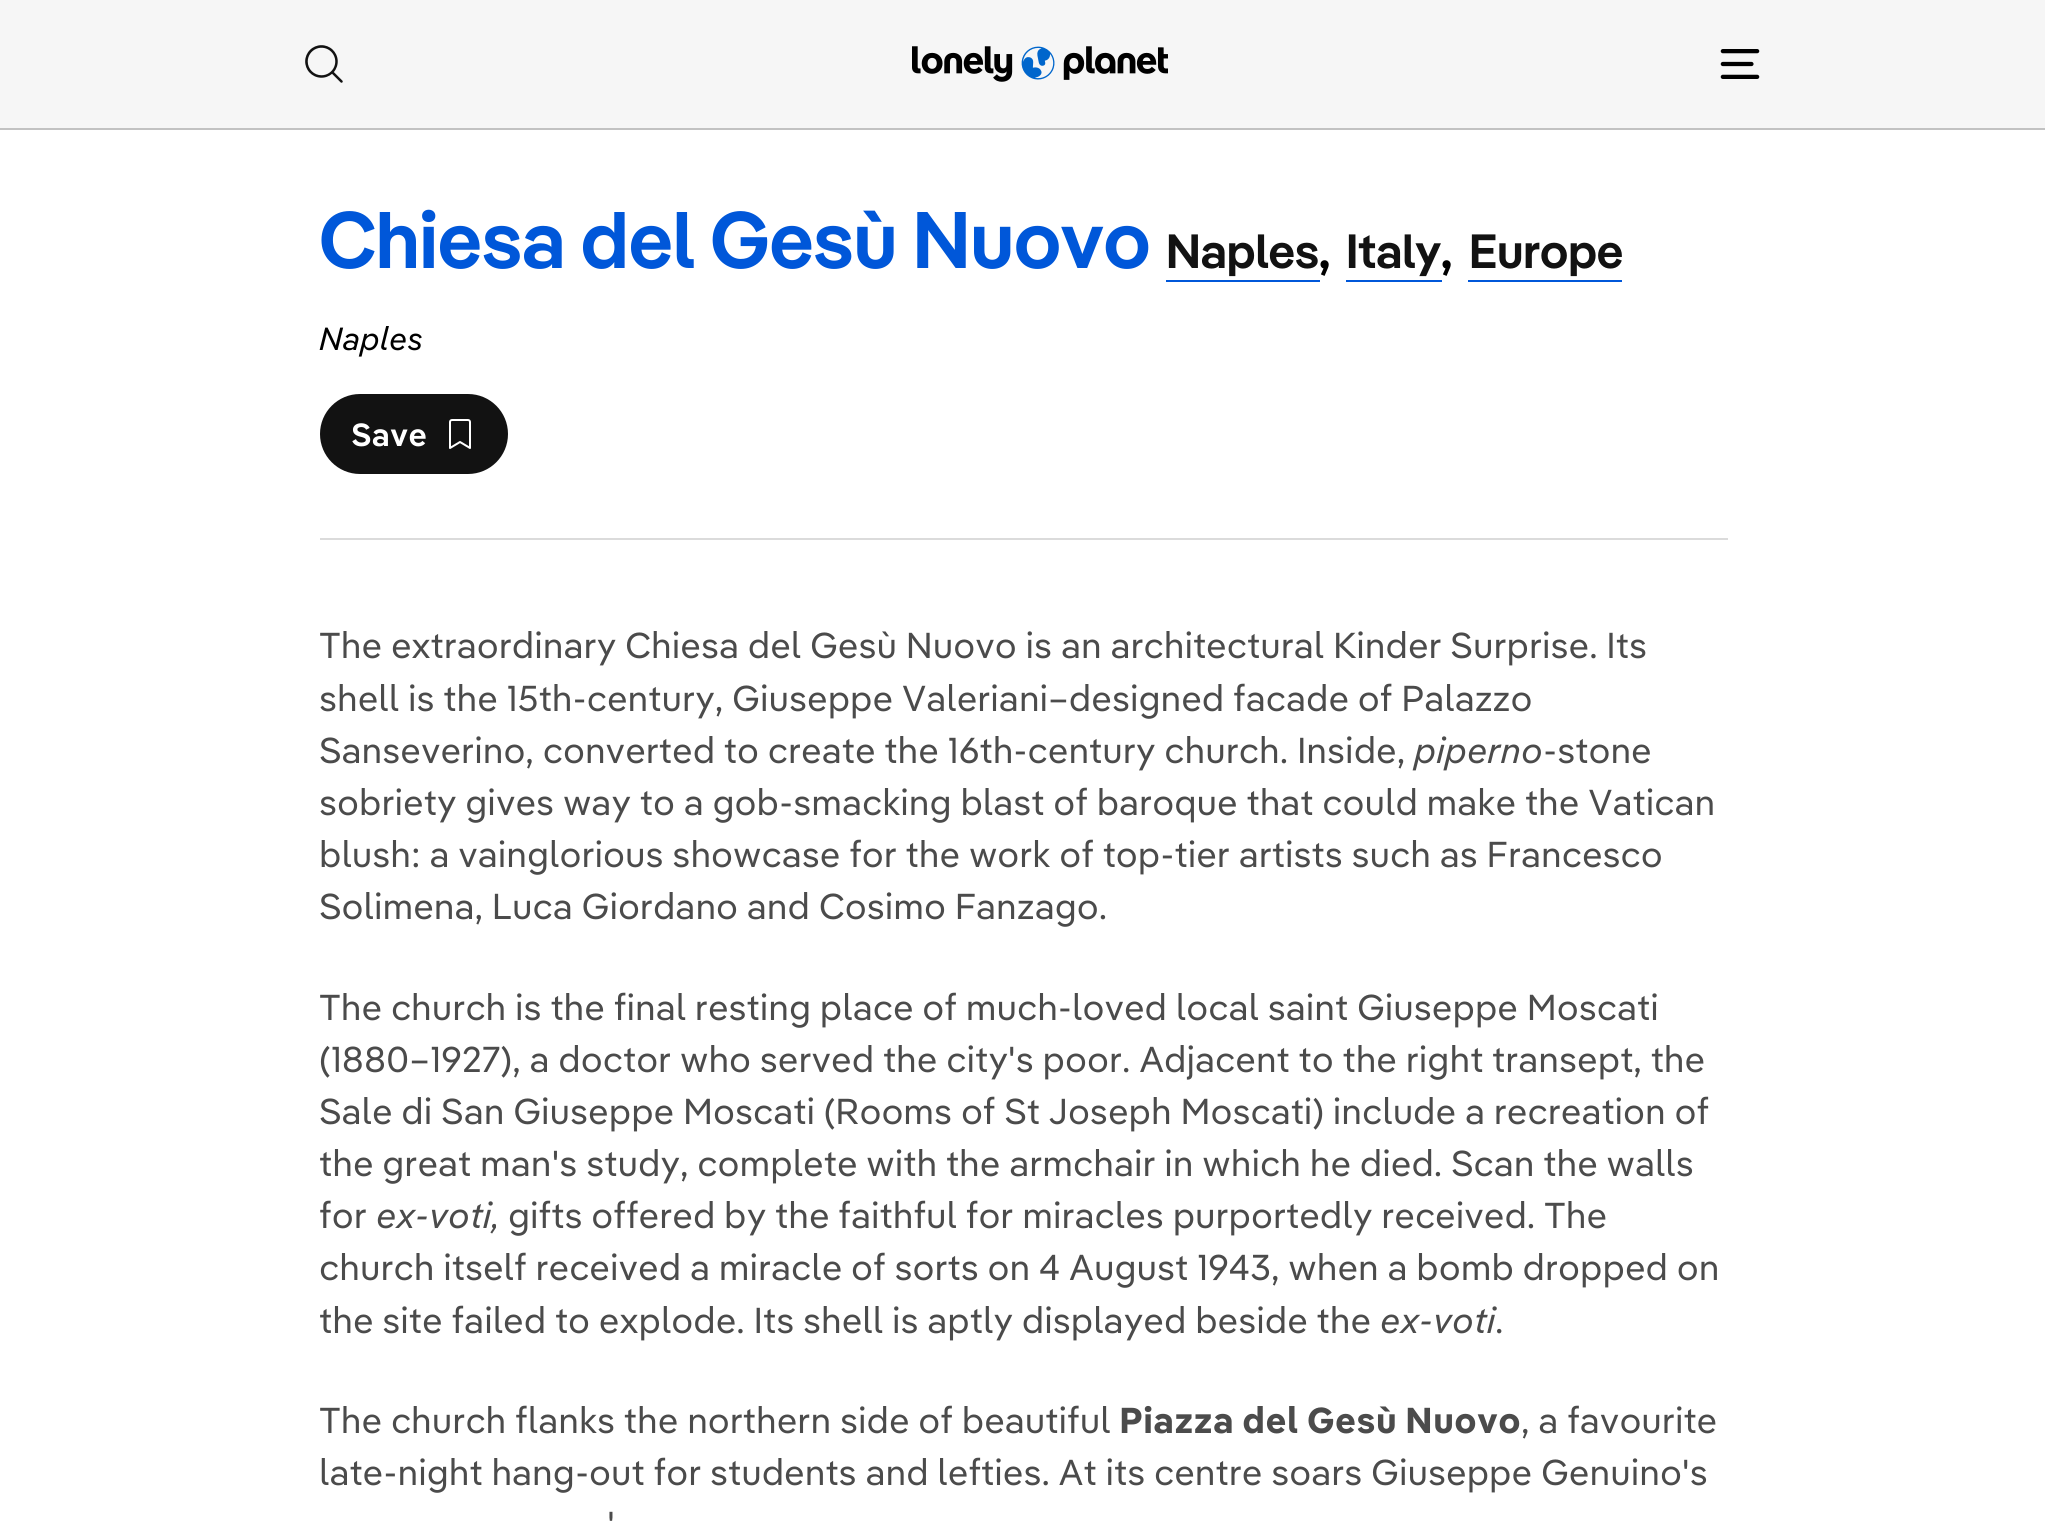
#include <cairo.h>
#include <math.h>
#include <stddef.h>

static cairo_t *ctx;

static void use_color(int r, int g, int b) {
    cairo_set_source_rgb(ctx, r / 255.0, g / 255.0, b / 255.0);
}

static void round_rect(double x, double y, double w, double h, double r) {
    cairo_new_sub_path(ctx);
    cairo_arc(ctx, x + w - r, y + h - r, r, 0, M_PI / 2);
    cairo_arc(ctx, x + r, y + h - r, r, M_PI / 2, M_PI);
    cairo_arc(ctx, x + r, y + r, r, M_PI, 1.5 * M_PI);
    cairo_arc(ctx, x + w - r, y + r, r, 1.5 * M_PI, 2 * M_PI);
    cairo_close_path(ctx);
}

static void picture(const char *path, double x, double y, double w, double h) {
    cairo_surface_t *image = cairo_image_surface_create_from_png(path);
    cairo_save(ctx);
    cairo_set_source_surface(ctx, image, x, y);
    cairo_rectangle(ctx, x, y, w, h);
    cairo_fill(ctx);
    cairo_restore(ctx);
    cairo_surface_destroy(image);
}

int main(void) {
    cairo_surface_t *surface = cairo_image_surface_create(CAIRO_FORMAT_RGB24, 2045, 1529);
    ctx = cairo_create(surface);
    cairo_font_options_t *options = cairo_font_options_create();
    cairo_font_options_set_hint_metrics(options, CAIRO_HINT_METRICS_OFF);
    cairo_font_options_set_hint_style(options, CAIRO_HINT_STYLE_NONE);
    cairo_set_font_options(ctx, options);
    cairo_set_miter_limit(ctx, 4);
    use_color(255, 255, 255);
    cairo_paint(ctx);
    use_color(246, 246, 246);
    cairo_rectangle(ctx, 0, 0, 2045, 128);
    cairo_fill(ctx);
    use_color(194, 194, 194);
    cairo_rectangle(ctx, 0, 128, 2045, 2);
    cairo_fill(ctx);
    picture("img1.png", 305, 45, 38, 38);
    picture("img2.png", 912, 46, 256, 36);
    picture("img3.png", 1720, 49, 40, 30);
    cairo_select_font_face(ctx, "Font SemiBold", CAIRO_FONT_SLANT_NORMAL, CAIRO_FONT_WEIGHT_NORMAL);
    cairo_set_font_size(ctx, 80);
    use_color(0, 87, 217);
    cairo_move_to(ctx, 319, 268);
    cairo_show_text(ctx, "Chiesa del Gesù Nuovo");
    cairo_set_font_size(ctx, 48);
    use_color(18, 18, 18);
    cairo_move_to(ctx, 1166, 268);
    cairo_show_text(ctx, "Naples");
    use_color(0, 87, 217);
    cairo_rectangle(ctx, 1166, 280, 154, 2);
    cairo_fill(ctx);
    use_color(0, 0, 0);
    cairo_move_to(ctx, 1319, 268);
    cairo_show_text(ctx, ",");
    use_color(18, 18, 18);
    cairo_move_to(ctx, 1346, 268);
    cairo_show_text(ctx, "Italy");
    use_color(0, 87, 217);
    cairo_rectangle(ctx, 1346, 280, 96, 2);
    cairo_fill(ctx);
    use_color(0, 0, 0);
    cairo_move_to(ctx, 1441, 268);
    cairo_show_text(ctx, ",");
    use_color(18, 18, 18);
    cairo_move_to(ctx, 1469, 268);
    cairo_show_text(ctx, "Europe");
    use_color(0, 87, 217);
    cairo_rectangle(ctx, 1468, 280, 154, 2);
    cairo_fill(ctx);
    cairo_select_font_face(ctx, "Font", CAIRO_FONT_SLANT_ITALIC, CAIRO_FONT_WEIGHT_NORMAL);
    cairo_set_font_size(ctx, 32);
    use_color(0, 0, 0);
    cairo_move_to(ctx, 319, 350);
    cairo_show_text(ctx, "Naples");
    use_color(18, 18, 18);
    round_rect(320, 394, 188, 80, 40);
    cairo_fill(ctx);
    cairo_select_font_face(ctx, "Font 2 SemiBold", CAIRO_FONT_SLANT_NORMAL, CAIRO_FONT_WEIGHT_NORMAL);
    use_color(255, 255, 255);
    cairo_move_to(ctx, 351, 446);
    cairo_show_text(ctx, "Save");
    picture("img4.png", 449, 419, 22, 30);
    use_color(219, 219, 219);
    cairo_rectangle(ctx, 320, 538, 1408, 2);
    cairo_fill(ctx);
    cairo_select_font_face(ctx, "Font", CAIRO_FONT_SLANT_NORMAL, CAIRO_FONT_WEIGHT_NORMAL);
    cairo_set_font_size(ctx, 36);
    use_color(75, 75, 75);
    cairo_move_to(ctx, 319, 658);
    cairo_show_text(ctx, "The extraordinary Chiesa del Gesù Nuovo is an architectural Kinder Surprise. Its");
    cairo_move_to(ctx, 319, 711);
    cairo_show_text(ctx, "shell is the 15th-century, Giuseppe Valeriani–designed facade of Palazzo");
    cairo_move_to(ctx, 319, 763);
    cairo_show_text(ctx, "Sanseverino, converted to create the 16th-century church. Inside,");
    cairo_select_font_face(ctx, "Font", CAIRO_FONT_SLANT_ITALIC, CAIRO_FONT_WEIGHT_NORMAL);
    cairo_move_to(ctx, 1414, 763);
    cairo_show_text(ctx, "piperno");
    cairo_select_font_face(ctx, "Font", CAIRO_FONT_SLANT_NORMAL, CAIRO_FONT_WEIGHT_NORMAL);
    cairo_move_to(ctx, 1543, 763);
    cairo_show_text(ctx, "-stone");
    cairo_move_to(ctx, 319, 815);
    cairo_show_text(ctx, "sobriety gives way to a gob-smacking blast of baroque that could make the Vatican");
    cairo_move_to(ctx, 319, 867);
    cairo_show_text(ctx, "blush: a vainglorious showcase for the work of top-tier artists such as Francesco");
    cairo_move_to(ctx, 319, 919);
    cairo_show_text(ctx, "Solimena, Luca Giordano and Cosimo Fanzago.");
    cairo_move_to(ctx, 319, 1020);
    cairo_show_text(ctx, "The church is the final resting place of much-loved local saint Giuseppe Moscati");
    cairo_move_to(ctx, 319, 1072);
    cairo_show_text(ctx, "(1880–1927), a doctor who served the city's poor. Adjacent to the right transept, the");
    cairo_move_to(ctx, 319, 1124);
    cairo_show_text(ctx, "Sale di San Giuseppe Moscati (Rooms of St Joseph Moscati) include a recreation of");
    cairo_move_to(ctx, 319, 1176);
    cairo_show_text(ctx, "the great man's study, complete with the armchair in which he died. Scan the walls");
    cairo_move_to(ctx, 319, 1228);
    cairo_show_text(ctx, "for");
    cairo_select_font_face(ctx, "Font", CAIRO_FONT_SLANT_ITALIC, CAIRO_FONT_WEIGHT_NORMAL);
    cairo_move_to(ctx, 376, 1228);
    cairo_show_text(ctx, "ex-voti,");
    cairo_select_font_face(ctx, "Font", CAIRO_FONT_SLANT_NORMAL, CAIRO_FONT_WEIGHT_NORMAL);
    cairo_move_to(ctx, 508, 1228);
    cairo_show_text(ctx, "gifts offered by the faithful for miracles purportedly received. The");
    cairo_move_to(ctx, 319, 1280);
    cairo_show_text(ctx, "church itself received a miracle of sorts on 4 August 1943, when a bomb dropped on");
    cairo_move_to(ctx, 319, 1333);
    cairo_show_text(ctx, "the site failed to explode. Its shell is aptly displayed beside the");
    cairo_select_font_face(ctx, "Font", CAIRO_FONT_SLANT_ITALIC, CAIRO_FONT_WEIGHT_NORMAL);
    cairo_move_to(ctx, 1380, 1333);
    cairo_show_text(ctx, "ex-voti");
    cairo_select_font_face(ctx, "Font", CAIRO_FONT_SLANT_NORMAL, CAIRO_FONT_WEIGHT_NORMAL);
    cairo_move_to(ctx, 1495, 1333);
    cairo_show_text(ctx, ".");
    cairo_move_to(ctx, 319, 1433);
    cairo_show_text(ctx, "The church flanks the northern side of beautiful");
    cairo_select_font_face(ctx, "Font", CAIRO_FONT_SLANT_NORMAL, CAIRO_FONT_WEIGHT_BOLD);
    cairo_move_to(ctx, 1119, 1433);
    cairo_show_text(ctx, "Piazza del Gesù Nuovo");
    cairo_select_font_face(ctx, "Font", CAIRO_FONT_SLANT_NORMAL, CAIRO_FONT_WEIGHT_NORMAL);
    cairo_move_to(ctx, 1521, 1433);
    cairo_show_text(ctx, ", a favourite");
    cairo_move_to(ctx, 319, 1485);
    cairo_show_text(ctx, "late-night hang-out for students and lefties. At its centre soars Giuseppe Genuino's");
    cairo_move_to(ctx, 607, 1537);
    cairo_show_text(ctx, "'");
    cairo_surface_write_to_png(surface, "result.png");
    cairo_font_options_destroy(options);
    cairo_destroy(ctx);
    cairo_surface_destroy(surface);
    return 0;
}
